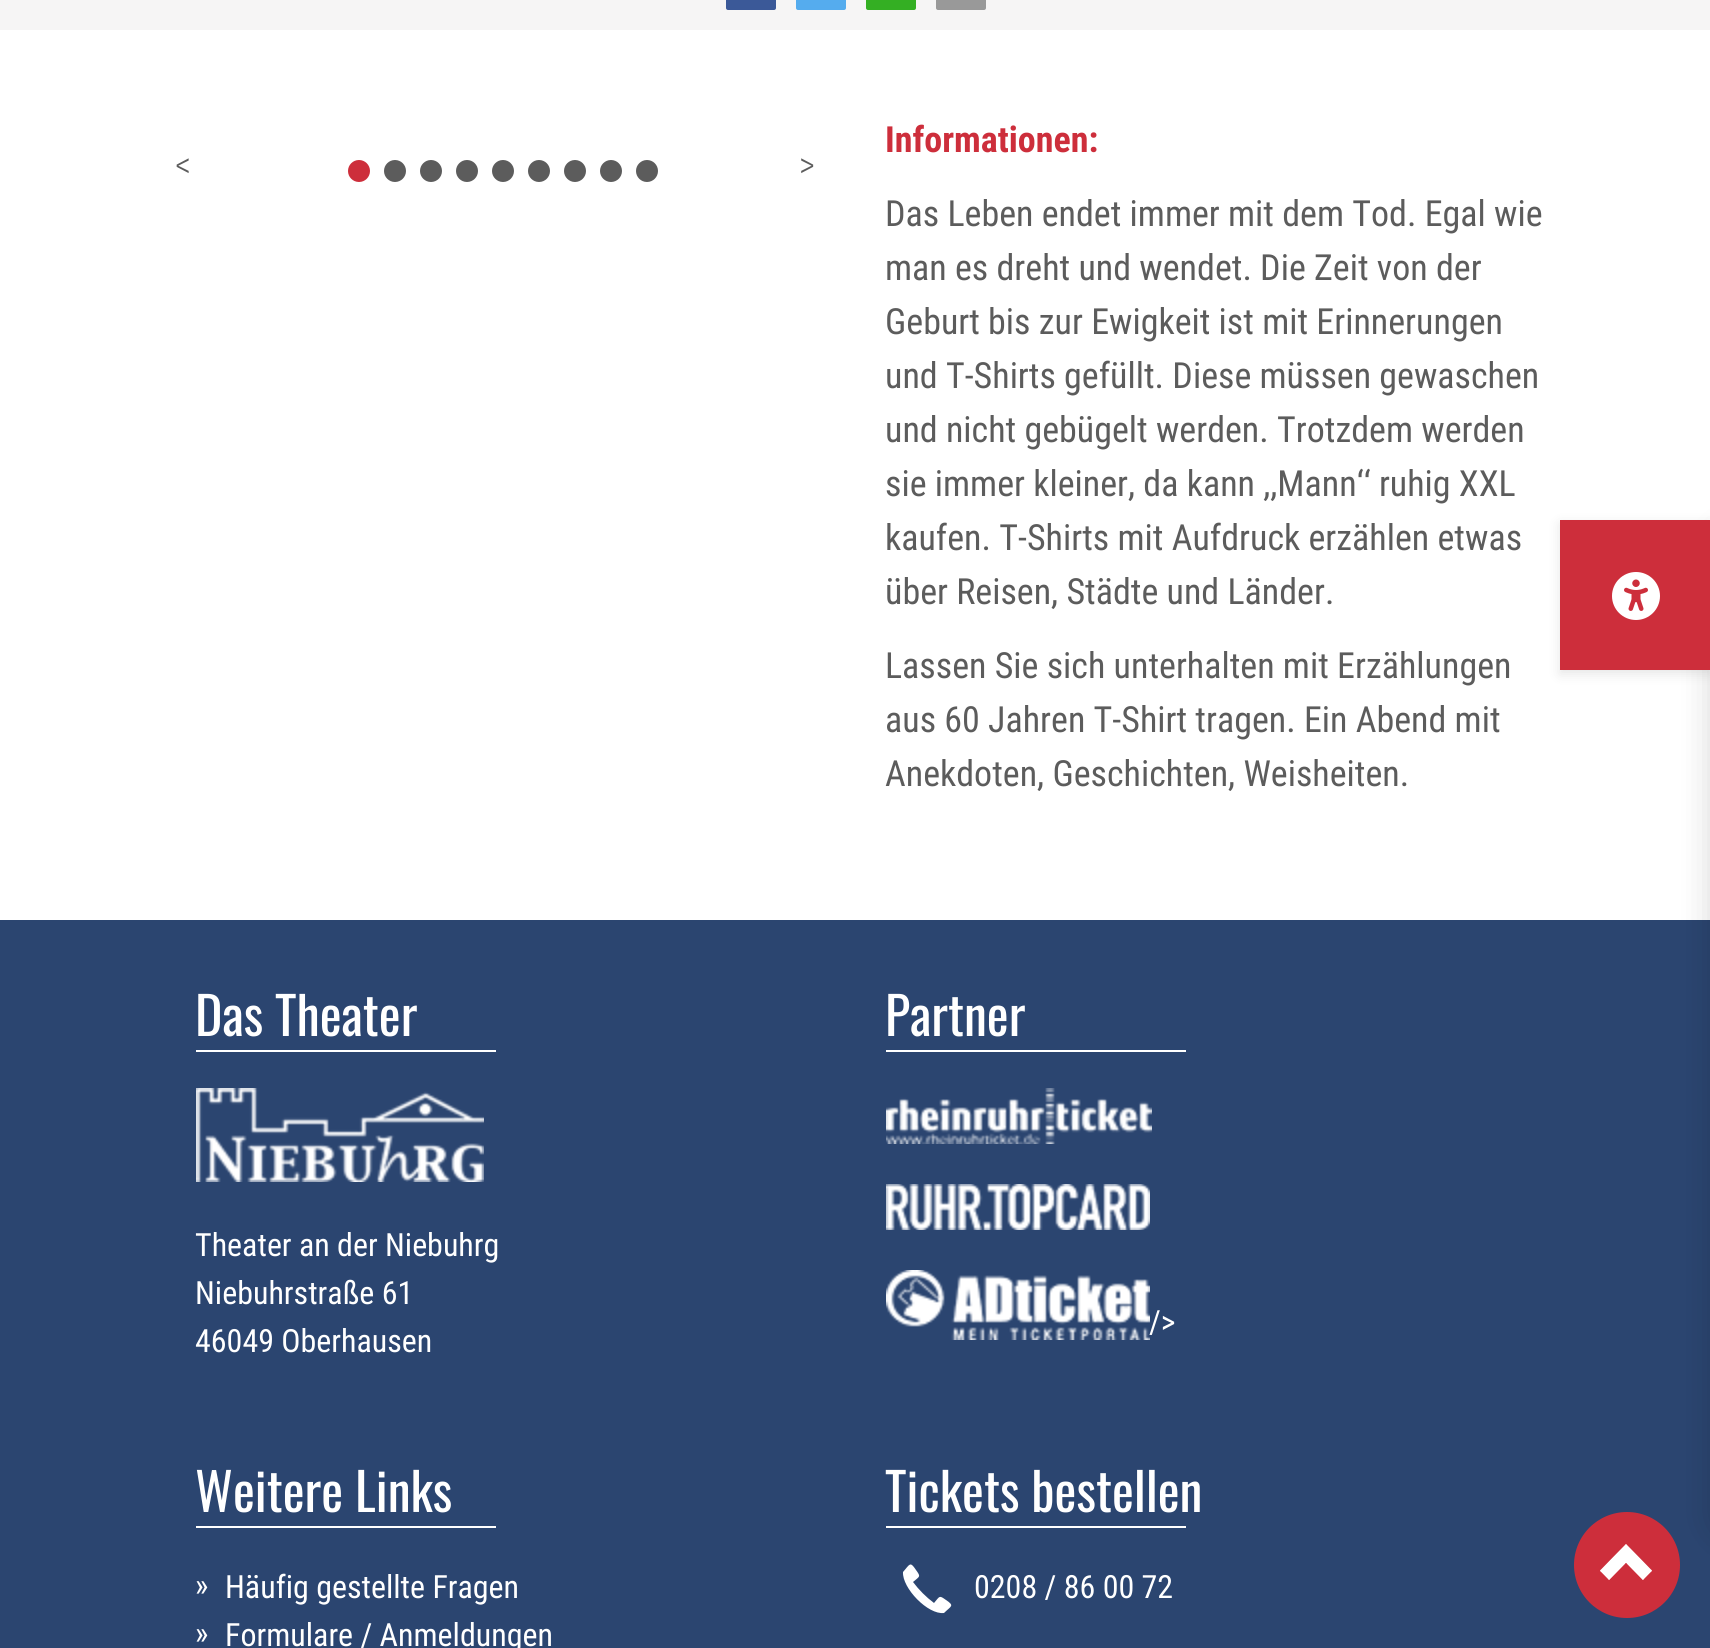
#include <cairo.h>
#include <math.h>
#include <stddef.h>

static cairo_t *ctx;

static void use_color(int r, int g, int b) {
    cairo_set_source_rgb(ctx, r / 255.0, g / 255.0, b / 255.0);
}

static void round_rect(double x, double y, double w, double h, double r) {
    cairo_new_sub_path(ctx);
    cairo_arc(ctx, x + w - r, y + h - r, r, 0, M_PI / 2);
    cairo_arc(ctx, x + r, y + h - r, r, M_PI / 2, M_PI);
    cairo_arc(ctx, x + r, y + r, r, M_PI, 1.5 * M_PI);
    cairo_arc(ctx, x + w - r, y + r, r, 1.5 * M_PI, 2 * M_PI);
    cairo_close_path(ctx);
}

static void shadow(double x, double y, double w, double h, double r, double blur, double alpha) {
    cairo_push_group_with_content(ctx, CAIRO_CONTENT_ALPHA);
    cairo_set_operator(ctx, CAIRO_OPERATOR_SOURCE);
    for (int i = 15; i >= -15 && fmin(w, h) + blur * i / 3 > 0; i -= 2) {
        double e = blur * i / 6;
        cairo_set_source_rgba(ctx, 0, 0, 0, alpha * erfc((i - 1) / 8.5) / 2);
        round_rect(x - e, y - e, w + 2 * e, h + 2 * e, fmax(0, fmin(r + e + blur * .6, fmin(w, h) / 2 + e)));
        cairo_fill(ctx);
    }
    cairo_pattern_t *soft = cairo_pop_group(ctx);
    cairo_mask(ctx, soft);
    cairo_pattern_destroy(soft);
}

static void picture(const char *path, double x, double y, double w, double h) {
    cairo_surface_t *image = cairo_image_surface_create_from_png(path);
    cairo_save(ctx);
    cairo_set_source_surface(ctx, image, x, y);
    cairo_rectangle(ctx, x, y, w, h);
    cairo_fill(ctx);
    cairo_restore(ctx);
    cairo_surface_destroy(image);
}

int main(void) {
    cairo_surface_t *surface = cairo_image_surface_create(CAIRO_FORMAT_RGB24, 1710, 1648);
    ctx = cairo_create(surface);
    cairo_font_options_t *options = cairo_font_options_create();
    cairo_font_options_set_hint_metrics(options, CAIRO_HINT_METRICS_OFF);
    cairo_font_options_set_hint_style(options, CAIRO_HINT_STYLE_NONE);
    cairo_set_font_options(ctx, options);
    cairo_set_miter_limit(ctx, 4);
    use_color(246, 245, 245);
    cairo_paint(ctx);
    use_color(59, 89, 152);
    round_rect(726, -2, 50, 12, 2);
    cairo_fill(ctx);
    use_color(85, 172, 238);
    round_rect(796, -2, 50, 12, 2);
    cairo_fill(ctx);
    use_color(52, 175, 35);
    round_rect(866, -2, 50, 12, 2);
    cairo_fill(ctx);
    use_color(153, 153, 153);
    round_rect(936, -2, 50, 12, 2);
    cairo_fill(ctx);
    use_color(255, 255, 255);
    cairo_rectangle(ctx, 0, 30, 1710, 890);
    cairo_fill(ctx);
    cairo_select_font_face(ctx, "Oswald ExtraLight", CAIRO_FONT_SLANT_NORMAL, CAIRO_FONT_WEIGHT_NORMAL);
    cairo_set_font_size(ctx, 44);
    use_color(92, 92, 92);
    cairo_move_to(ctx, 175, 184);
    cairo_show_text(ctx, "<");
    cairo_move_to(ctx, 800, 184);
    cairo_show_text(ctx, ">");
    use_color(205, 46, 59);
    cairo_new_path(ctx);
    cairo_arc(ctx, 359, 171, 11, 0, 2 * M_PI);
    cairo_fill(ctx);
    use_color(92, 92, 92);
    cairo_arc(ctx, 395, 171, 11, 0, 2 * M_PI);
    cairo_fill(ctx);
    cairo_arc(ctx, 431, 171, 11, 0, 2 * M_PI);
    cairo_fill(ctx);
    cairo_arc(ctx, 467, 171, 11, 0, 2 * M_PI);
    cairo_fill(ctx);
    cairo_arc(ctx, 503, 171, 11, 0, 2 * M_PI);
    cairo_fill(ctx);
    cairo_arc(ctx, 539, 171, 11, 0, 2 * M_PI);
    cairo_fill(ctx);
    cairo_arc(ctx, 575, 171, 11, 0, 2 * M_PI);
    cairo_fill(ctx);
    cairo_arc(ctx, 611, 171, 11, 0, 2 * M_PI);
    cairo_fill(ctx);
    cairo_arc(ctx, 647, 171, 11, 0, 2 * M_PI);
    cairo_fill(ctx);
    cairo_select_font_face(ctx, "Roboto Condensed", CAIRO_FONT_SLANT_NORMAL, CAIRO_FONT_WEIGHT_BOLD);
    cairo_set_font_size(ctx, 36);
    use_color(205, 46, 59);
    cairo_move_to(ctx, 885, 152);
    cairo_show_text(ctx, "Informationen:");
    cairo_select_font_face(ctx, "Roboto Condensed", CAIRO_FONT_SLANT_NORMAL, CAIRO_FONT_WEIGHT_NORMAL);
    use_color(92, 92, 92);
    cairo_move_to(ctx, 885, 226);
    cairo_show_text(ctx, "Das Leben endet immer mit dem Tod. Egal wie");
    cairo_move_to(ctx, 885, 280);
    cairo_show_text(ctx, "man es dreht und wendet. Die Zeit von der");
    cairo_move_to(ctx, 885, 334);
    cairo_show_text(ctx, "Geburt bis zur Ewigkeit ist mit Erinnerungen");
    cairo_move_to(ctx, 885, 388);
    cairo_show_text(ctx, "und T-Shirts gefüllt. Diese müssen gewaschen");
    cairo_move_to(ctx, 885, 442);
    cairo_show_text(ctx, "und nicht gebügelt werden. Trotzdem werden");
    cairo_move_to(ctx, 885, 496);
    cairo_show_text(ctx, "sie immer kleiner, da kann ,,Mann‘‘ ruhig XXL");
    cairo_move_to(ctx, 885, 550);
    cairo_show_text(ctx, "kaufen. T-Shirts mit Aufdruck erzählen etwas");
    cairo_move_to(ctx, 885, 604);
    cairo_show_text(ctx, "über Reisen, Städte und Länder.");
    cairo_move_to(ctx, 885, 678);
    cairo_show_text(ctx, "Lassen Sie sich unterhalten mit Erzählungen");
    cairo_move_to(ctx, 885, 732);
    cairo_show_text(ctx, "aus 60 Jahren T-Shirt tragen. Ein Abend mit");
    cairo_move_to(ctx, 885, 786);
    cairo_show_text(ctx, "Anekdoten, Geschichten, Weisheiten.");
    use_color(43, 69, 112);
    cairo_rectangle(ctx, 0, 920, 1710, 728);
    cairo_fill(ctx);
    picture("img6.png", 1574, 1512, 106, 106);
    use_color(0, 0, 0);
    shadow(1710, 528, 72, 1014, 24, 16, 0.15);
    shadow(1560, 524, 150, 150, 0, 6, 0.1);
    use_color(205, 46, 59);
    cairo_rectangle(ctx, 1560, 520, 150, 150);
    cairo_fill(ctx);
    picture("img1.png", 1612, 572, 48, 48);
    cairo_select_font_face(ctx, "Oswald", CAIRO_FONT_SLANT_NORMAL, CAIRO_FONT_WEIGHT_NORMAL);
    cairo_set_font_size(ctx, 52);
    use_color(255, 255, 255);
    cairo_move_to(ctx, 195, 1036);
    cairo_show_text(ctx, "Das Theater");
    cairo_rectangle(ctx, 196, 1050, 300, 2);
    cairo_fill(ctx);
    picture("img2.png", 196, 1088, 288, 94);
    cairo_select_font_face(ctx, "Roboto Condensed", CAIRO_FONT_SLANT_NORMAL, CAIRO_FONT_WEIGHT_NORMAL);
    cairo_set_font_size(ctx, 32);
    cairo_move_to(ctx, 195, 1256);
    cairo_show_text(ctx, "Theater an der Niebuhrg");
    cairo_move_to(ctx, 195, 1304);
    cairo_show_text(ctx, "Niebuhrstraße 61");
    cairo_move_to(ctx, 195, 1352);
    cairo_show_text(ctx, "46049 Oberhausen");
    cairo_select_font_face(ctx, "Oswald", CAIRO_FONT_SLANT_NORMAL, CAIRO_FONT_WEIGHT_NORMAL);
    cairo_set_font_size(ctx, 52);
    cairo_move_to(ctx, 885, 1036);
    cairo_show_text(ctx, "Partner");
    cairo_rectangle(ctx, 886, 1050, 300, 2);
    cairo_fill(ctx);
    picture("img3.png", 886, 1088, 266, 56);
    picture("img4.png", 886, 1184, 264, 46);
    picture("img5.png", 886, 1270, 264, 70);
    cairo_select_font_face(ctx, "Roboto Condensed", CAIRO_FONT_SLANT_NORMAL, CAIRO_FONT_WEIGHT_NORMAL);
    cairo_set_font_size(ctx, 32);
    cairo_move_to(ctx, 1149, 1333);
    cairo_show_text(ctx, "/>");
    cairo_select_font_face(ctx, "Oswald", CAIRO_FONT_SLANT_NORMAL, CAIRO_FONT_WEIGHT_NORMAL);
    cairo_set_font_size(ctx, 52);
    cairo_move_to(ctx, 195, 1512);
    cairo_show_text(ctx, "Weitere Links");
    cairo_rectangle(ctx, 196, 1526, 300, 2);
    cairo_fill(ctx);
    cairo_select_font_face(ctx, "Roboto Condensed", CAIRO_FONT_SLANT_NORMAL, CAIRO_FONT_WEIGHT_NORMAL);
    cairo_set_font_size(ctx, 32);
    cairo_move_to(ctx, 195, 1596);
    cairo_show_text(ctx, "»");
    cairo_move_to(ctx, 225, 1598);
    cairo_show_text(ctx, "Häufig gestellte Fragen");
    cairo_move_to(ctx, 195, 1644);
    cairo_show_text(ctx, "»");
    cairo_move_to(ctx, 225, 1646);
    cairo_show_text(ctx, "Formulare / Anmeldungen");
    cairo_select_font_face(ctx, "Oswald", CAIRO_FONT_SLANT_NORMAL, CAIRO_FONT_WEIGHT_NORMAL);
    cairo_set_font_size(ctx, 52);
    cairo_move_to(ctx, 885, 1512);
    cairo_show_text(ctx, "Tickets bestellen");
    cairo_rectangle(ctx, 886, 1526, 300, 2);
    cairo_fill(ctx);
    cairo_new_path(ctx);
    cairo_move_to(ctx, 944, 1613);
    cairo_curve_to(ctx, 928, 1615, 902, 1588, 903, 1572);
    cairo_curve_to(ctx, 910, 1564, 910, 1561, 916, 1570);
    cairo_curve_to(ctx, 921, 1577, 920, 1576, 913, 1582);
    cairo_curve_to(ctx, 919, 1590, 926, 1597, 934, 1603);
    cairo_curve_to(ctx, 940, 1596, 939, 1595, 946, 1600);
    cairo_curve_to(ctx, 955, 1606, 951, 1606, 944, 1613);
    cairo_close_path(ctx);
    cairo_fill(ctx);
    cairo_select_font_face(ctx, "Roboto Condensed", CAIRO_FONT_SLANT_NORMAL, CAIRO_FONT_WEIGHT_NORMAL);
    cairo_set_font_size(ctx, 32);
    cairo_move_to(ctx, 974, 1598);
    cairo_show_text(ctx, "0208 / 86 00 72");
    cairo_surface_write_to_png(surface, "result.png");
    cairo_font_options_destroy(options);
    cairo_destroy(ctx);
    cairo_surface_destroy(surface);
    return 0;
}
